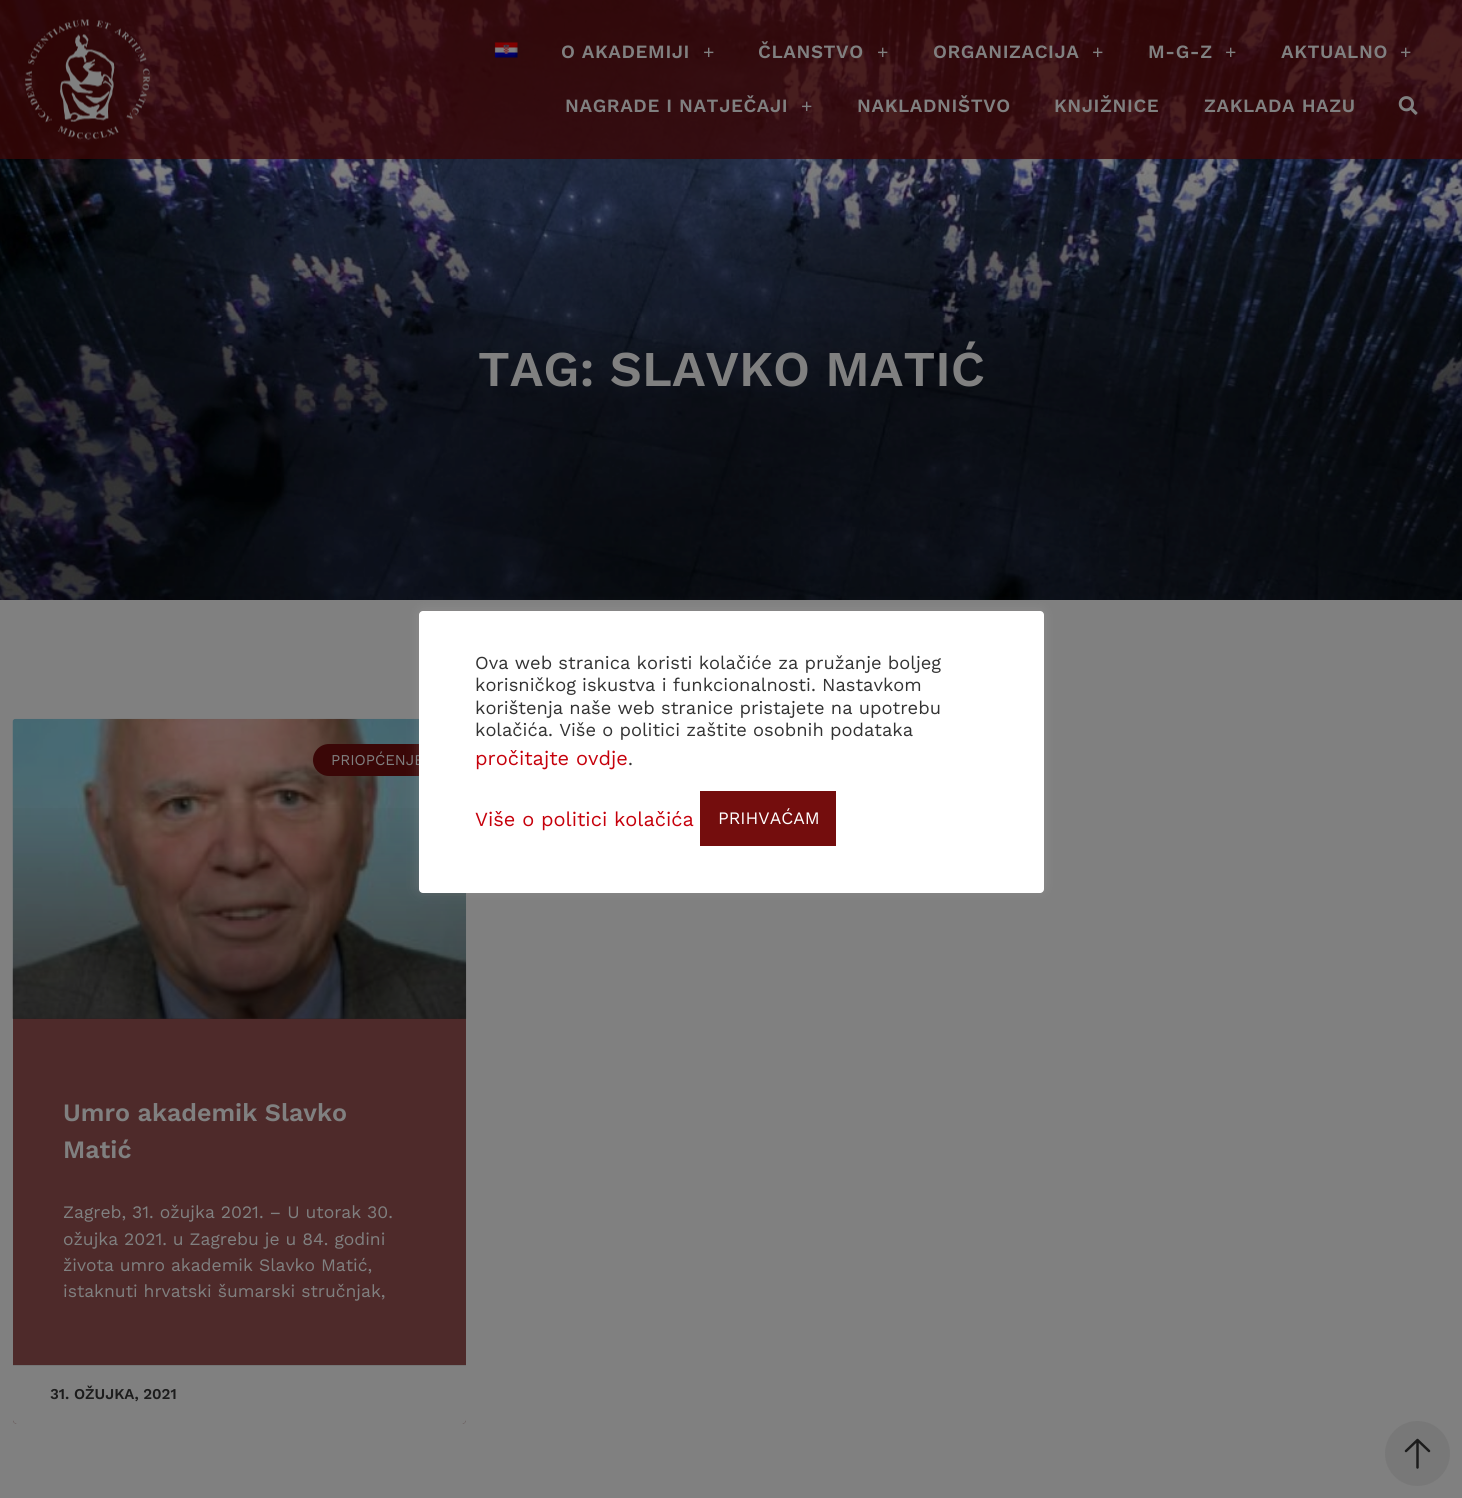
#include <cairo.h>
#include <math.h>
#include <stddef.h>

static cairo_t *ctx;

static void use_color(int r, int g, int b) {
    cairo_set_source_rgb(ctx, r / 255.0, g / 255.0, b / 255.0);
}

static void spaced_text(double x, double y, const char *s, double letter, double word) {
    cairo_move_to(ctx, x, y);
    while (*s) {
        char ch[5] = {0};
        int n = 0;
        do ch[n++] = *s++; while ((*s & 0xC0) == 0x80);
        cairo_show_text(ctx, ch);
        cairo_rel_move_to(ctx, letter + word * (*ch == ' '), 0);
    }
}

static void round_rect(double x, double y, double w, double h, double r) {
    cairo_new_sub_path(ctx);
    cairo_arc(ctx, x + w - r, y + h - r, r, 0, M_PI / 2);
    cairo_arc(ctx, x + r, y + h - r, r, M_PI / 2, M_PI);
    cairo_arc(ctx, x + r, y + r, r, M_PI, 1.5 * M_PI);
    cairo_arc(ctx, x + w - r, y + r, r, 1.5 * M_PI, 2 * M_PI);
    cairo_close_path(ctx);
}

static void shadow(double x, double y, double w, double h, double r, double blur, double alpha) {
    cairo_push_group_with_content(ctx, CAIRO_CONTENT_ALPHA);
    cairo_set_operator(ctx, CAIRO_OPERATOR_SOURCE);
    for (int i = 15; i >= -15 && fmin(w, h) + blur * i / 3 > 0; i -= 2) {
        double e = blur * i / 6;
        cairo_set_source_rgba(ctx, 0, 0, 0, alpha * erfc((i - 1) / 8.5) / 2);
        round_rect(x - e, y - e, w + 2 * e, h + 2 * e, fmax(0, fmin(r + e + blur * .6, fmin(w, h) / 2 + e)));
        cairo_fill(ctx);
    }
    cairo_pattern_t *soft = cairo_pop_group(ctx);
    cairo_mask(ctx, soft);
    cairo_pattern_destroy(soft);
}

static void picture(const char *path, double x, double y, double w, double h) {
    cairo_surface_t *image = cairo_image_surface_create_from_png(path);
    cairo_save(ctx);
    cairo_set_source_surface(ctx, image, x, y);
    cairo_rectangle(ctx, x, y, w, h);
    cairo_fill(ctx);
    cairo_restore(ctx);
    cairo_surface_destroy(image);
}

int main(void) {
    cairo_surface_t *surface = cairo_image_surface_create(CAIRO_FORMAT_RGB24, 1462, 1498);
    ctx = cairo_create(surface);
    cairo_font_options_t *options = cairo_font_options_create();
    cairo_font_options_set_hint_metrics(options, CAIRO_HINT_METRICS_OFF);
    cairo_font_options_set_hint_style(options, CAIRO_HINT_STYLE_NONE);
    cairo_set_font_options(ctx, options);
    cairo_set_miter_limit(ctx, 4);
    cairo_pattern_t *gradient;
    use_color(128, 128, 128);
    cairo_paint(ctx);
    picture("img4.png", 0, 0, 1462, 600);
    cairo_set_source_rgba(ctx, 0.227, 0.027, 0.027, 0.8);
    cairo_rectangle(ctx, 0, 0, 1462, 159);
    cairo_fill(ctx);
    picture("img1.png", 25, 19, 125, 121);
    picture("img2.png", 494, 42, 24, 16);
    cairo_select_font_face(ctx, "Work Sans SemiBold", CAIRO_FONT_SLANT_NORMAL, CAIRO_FONT_WEIGHT_NORMAL);
    cairo_set_font_size(ctx, 18.75);
    use_color(128, 128, 128);
    spaced_text(561, 58, "O AKADEMIJI", 0.6, 0);
    cairo_select_font_face(ctx, "Liberation Serif", CAIRO_FONT_SLANT_NORMAL, CAIRO_FONT_WEIGHT_BOLD);
    cairo_set_font_size(ctx, 20);
    spaced_text(703, 59, "+", 0.6, 0);
    cairo_select_font_face(ctx, "Work Sans SemiBold", CAIRO_FONT_SLANT_NORMAL, CAIRO_FONT_WEIGHT_NORMAL);
    cairo_set_font_size(ctx, 18.75);
    spaced_text(758, 58, "ČLANSTVO", 0.6, 0);
    cairo_select_font_face(ctx, "Liberation Serif", CAIRO_FONT_SLANT_NORMAL, CAIRO_FONT_WEIGHT_BOLD);
    cairo_set_font_size(ctx, 20);
    spaced_text(877, 59, "+", 0.6, 0);
    cairo_select_font_face(ctx, "Work Sans SemiBold", CAIRO_FONT_SLANT_NORMAL, CAIRO_FONT_WEIGHT_NORMAL);
    cairo_set_font_size(ctx, 18.75);
    spaced_text(933, 58, "ORGANIZACIJA", 0.6, 0);
    cairo_select_font_face(ctx, "Liberation Serif", CAIRO_FONT_SLANT_NORMAL, CAIRO_FONT_WEIGHT_BOLD);
    cairo_set_font_size(ctx, 20);
    spaced_text(1092, 59, "+", 0.6, 0);
    cairo_select_font_face(ctx, "Work Sans SemiBold", CAIRO_FONT_SLANT_NORMAL, CAIRO_FONT_WEIGHT_NORMAL);
    cairo_set_font_size(ctx, 18.75);
    spaced_text(1148, 58, "M-G-Z", 0.6, 0);
    cairo_select_font_face(ctx, "Liberation Serif", CAIRO_FONT_SLANT_NORMAL, CAIRO_FONT_WEIGHT_BOLD);
    cairo_set_font_size(ctx, 20);
    spaced_text(1225, 59, "+", 0.6, 0);
    cairo_select_font_face(ctx, "Work Sans SemiBold", CAIRO_FONT_SLANT_NORMAL, CAIRO_FONT_WEIGHT_NORMAL);
    cairo_set_font_size(ctx, 18.75);
    spaced_text(1281, 58, "AKTUALNO", 0.6, 0);
    cairo_select_font_face(ctx, "Liberation Serif", CAIRO_FONT_SLANT_NORMAL, CAIRO_FONT_WEIGHT_BOLD);
    cairo_set_font_size(ctx, 20);
    spaced_text(1400, 59, "+", 0.6, 0);
    cairo_select_font_face(ctx, "Work Sans SemiBold", CAIRO_FONT_SLANT_NORMAL, CAIRO_FONT_WEIGHT_NORMAL);
    cairo_set_font_size(ctx, 18.75);
    spaced_text(565, 112, "NAGRADE I NATJEČAJI", 0.6, 0);
    cairo_select_font_face(ctx, "Liberation Serif", CAIRO_FONT_SLANT_NORMAL, CAIRO_FONT_WEIGHT_BOLD);
    cairo_set_font_size(ctx, 20);
    spaced_text(801, 113, "+", 0.6, 0);
    cairo_select_font_face(ctx, "Work Sans SemiBold", CAIRO_FONT_SLANT_NORMAL, CAIRO_FONT_WEIGHT_NORMAL);
    cairo_set_font_size(ctx, 18.75);
    spaced_text(857, 112, "NAKLADNIŠTVO", 0.6, 0);
    spaced_text(1054, 112, "KNJIŽNICE", 0.6, 0);
    spaced_text(1204, 112, "ZAKLADA HAZU", 0.6, 0);
    picture("img3.png", 1398, 96, 20, 19);
    cairo_set_font_size(ctx, 50);
    cairo_move_to(ctx, 478, 386);
    cairo_show_text(ctx, "TAG: SLAVKO MATIĆ");
    cairo_set_source_rgba(ctx, 0.227, 0.027, 0.027, 0.7);
    round_rect(13, 719, 453, 705, 4);
    cairo_fill(ctx);
    picture("img5.png", 12, 718, 455, 301);
    gradient = cairo_pattern_create_linear(239, 1019, 239, 719);
    cairo_pattern_add_color_stop_rgba(gradient, 0, 0, 0, 0, 0.35);
    cairo_pattern_add_color_stop_rgba(gradient, 0.75, 0, 0, 0, 0);
    cairo_set_source(ctx, gradient);
    cairo_pattern_destroy(gradient);
    cairo_rectangle(ctx, 13, 808, 453, 211);
    cairo_fill(ctx);
    use_color(58, 7, 7);
    round_rect(313, 744, 128, 32, 16);
    cairo_fill(ctx);
    cairo_select_font_face(ctx, "Work Sans", CAIRO_FONT_SLANT_NORMAL, CAIRO_FONT_WEIGHT_NORMAL);
    cairo_set_font_size(ctx, 15);
    use_color(128, 128, 128);
    cairo_move_to(ctx, 331, 765);
    cairo_show_text(ctx, "PRIOPĆENJE");
    cairo_select_font_face(ctx, "Work Sans SemiBold", CAIRO_FONT_SLANT_NORMAL, CAIRO_FONT_WEIGHT_NORMAL);
    cairo_set_font_size(ctx, 25);
    cairo_move_to(ctx, 63, 1121);
    cairo_show_text(ctx, "Umro akademik Slavko");
    cairo_move_to(ctx, 63, 1158);
    cairo_show_text(ctx, "Matić");
    cairo_select_font_face(ctx, "Work Sans", CAIRO_FONT_SLANT_NORMAL, CAIRO_FONT_WEIGHT_NORMAL);
    cairo_set_font_size(ctx, 17.5);
    cairo_move_to(ctx, 63, 1218);
    cairo_show_text(ctx, "Zagreb, 31. ožujka 2021. – U utorak 30.");
    cairo_move_to(ctx, 63, 1245);
    cairo_show_text(ctx, "ožujka 2021. u Zagrebu je u 84. godini");
    cairo_move_to(ctx, 63, 1271);
    cairo_show_text(ctx, "života umro akademik Slavko Matić,");
    cairo_move_to(ctx, 63, 1297);
    cairo_show_text(ctx, "istaknuti hrvatski šumarski stručnjak,");
    cairo_new_path(ctx);
    cairo_move_to(ctx, 13, 1365);
    cairo_line_to(ctx, 466, 1365);
    cairo_line_to(ctx, 466, 1420);
    cairo_curve_to(ctx, 466, 1422, 464, 1424, 462, 1424);
    cairo_line_to(ctx, 17, 1424);
    cairo_curve_to(ctx, 15, 1424, 13, 1422, 13, 1420);
    cairo_close_path(ctx);
    cairo_fill(ctx);
    use_color(117, 117, 117);
    cairo_rectangle(ctx, 13, 1365, 453, 1);
    cairo_fill(ctx);
    cairo_select_font_face(ctx, "Work Sans SemiBold", CAIRO_FONT_SLANT_NORMAL, CAIRO_FONT_WEIGHT_NORMAL);
    cairo_set_font_size(ctx, 15);
    use_color(28, 28, 28);
    cairo_move_to(ctx, 50, 1399);
    cairo_show_text(ctx, "31. OŽUJKA, 2021");
    use_color(172, 171, 171);
    shadow(419, 610, 625, 281, 4, 6, 0.3);
    use_color(255, 255, 255);
    round_rect(419, 611, 625, 282, 4);
    cairo_fill(ctx);
    cairo_select_font_face(ctx, "Work Sans", CAIRO_FONT_SLANT_NORMAL, CAIRO_FONT_WEIGHT_NORMAL);
    cairo_set_font_size(ctx, 18.3);
    use_color(51, 51, 51);
    cairo_move_to(ctx, 475, 669);
    cairo_show_text(ctx, "Ova web stranica koristi kolačiće za pružanje boljeg");
    cairo_move_to(ctx, 475, 691);
    cairo_show_text(ctx, "korisničkog iskustva i funkcionalnosti. Nastavkom");
    cairo_move_to(ctx, 475, 714);
    cairo_show_text(ctx, "korištenja naše web stranice pristajete na upotrebu");
    cairo_move_to(ctx, 475, 736);
    cairo_show_text(ctx, "kolačića. Više o politici zaštite osobnih podataka");
    cairo_set_font_size(ctx, 20);
    use_color(198, 0, 11);
    cairo_move_to(ctx, 475, 765);
    cairo_show_text(ctx, "pročitajte ovdje");
    cairo_set_font_size(ctx, 18.3);
    use_color(51, 51, 51);
    cairo_move_to(ctx, 628, 765);
    cairo_show_text(ctx, ".");
    cairo_set_font_size(ctx, 20);
    use_color(198, 0, 11);
    cairo_move_to(ctx, 475, 826);
    cairo_show_text(ctx, "Više o politici kolačića");
    use_color(116, 13, 13);
    cairo_rectangle(ctx, 700, 791, 136, 55);
    cairo_fill(ctx);
    cairo_set_font_size(ctx, 17.5);
    use_color(255, 255, 255);
    cairo_move_to(ctx, 718, 824);
    cairo_show_text(ctx, "PRIHVAĆAM");
    use_color(120, 120, 120);
    cairo_new_path(ctx);
    cairo_arc(ctx, 1417.5, 1453.5, 32.5, 0, 2 * M_PI);
    cairo_fill(ctx);
    cairo_new_path(ctx);
    cairo_move_to(ctx, 1417.5, 1467.5);
    cairo_line_to(ctx, 1417.5, 1440);
    cairo_move_to(ctx, 1406, 1451);
    cairo_line_to(ctx, 1417.5, 1440);
    cairo_line_to(ctx, 1429, 1451);
    use_color(28, 28, 28);
    cairo_set_line_width(ctx, 2.5);
    cairo_set_line_cap(ctx, CAIRO_LINE_CAP_ROUND);
    cairo_set_line_join(ctx, CAIRO_LINE_JOIN_ROUND);
    cairo_stroke(ctx);
    cairo_surface_write_to_png(surface, "result.png");
    cairo_font_options_destroy(options);
    cairo_destroy(ctx);
    cairo_surface_destroy(surface);
    return 0;
}
